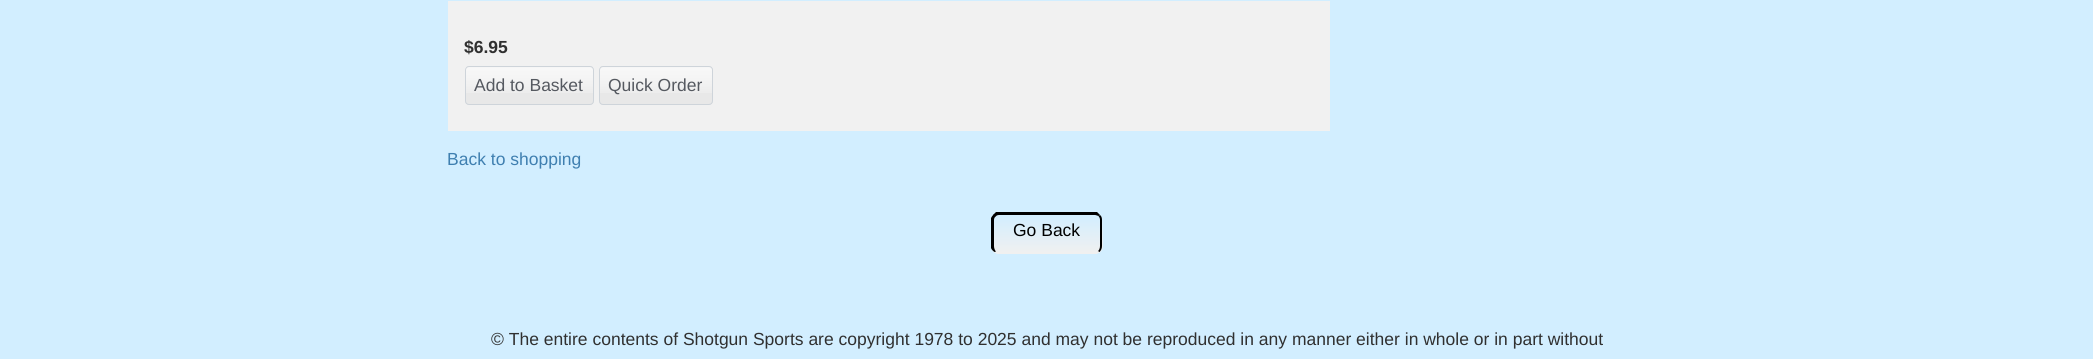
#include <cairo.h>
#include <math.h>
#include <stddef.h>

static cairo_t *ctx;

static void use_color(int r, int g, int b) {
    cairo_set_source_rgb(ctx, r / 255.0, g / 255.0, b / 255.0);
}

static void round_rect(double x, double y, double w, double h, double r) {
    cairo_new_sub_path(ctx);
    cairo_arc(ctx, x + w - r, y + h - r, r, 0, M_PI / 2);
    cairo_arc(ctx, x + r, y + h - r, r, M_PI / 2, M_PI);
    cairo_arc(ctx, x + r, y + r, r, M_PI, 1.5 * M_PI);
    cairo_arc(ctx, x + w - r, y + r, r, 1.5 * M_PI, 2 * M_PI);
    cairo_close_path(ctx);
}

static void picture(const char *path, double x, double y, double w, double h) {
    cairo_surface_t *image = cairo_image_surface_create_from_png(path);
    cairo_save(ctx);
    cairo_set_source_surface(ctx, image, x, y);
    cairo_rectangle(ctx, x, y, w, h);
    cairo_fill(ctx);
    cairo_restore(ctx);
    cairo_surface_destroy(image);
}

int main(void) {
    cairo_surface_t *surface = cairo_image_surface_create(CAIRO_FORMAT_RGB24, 2093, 359);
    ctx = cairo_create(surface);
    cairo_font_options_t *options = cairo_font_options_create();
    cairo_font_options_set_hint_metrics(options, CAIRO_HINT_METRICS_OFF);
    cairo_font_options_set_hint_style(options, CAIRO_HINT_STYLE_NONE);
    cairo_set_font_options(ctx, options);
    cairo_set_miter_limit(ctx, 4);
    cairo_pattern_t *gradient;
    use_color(210, 238, 255);
    cairo_paint(ctx);
    use_color(241, 241, 241);
    cairo_rectangle(ctx, 448, 1, 882, 130);
    cairo_fill(ctx);
    cairo_select_font_face(ctx, "Liberation Sans", CAIRO_FONT_SLANT_NORMAL, CAIRO_FONT_WEIGHT_BOLD);
    cairo_set_font_size(ctx, 17.5);
    use_color(48, 48, 48);
    cairo_move_to(ctx, 464, 53);
    cairo_show_text(ctx, "$6.95");
    use_color(232, 232, 232);
    round_rect(465, 66, 129, 39, 4);
    cairo_fill(ctx);
    picture("img1.png", 465, 67, 129, 26);
    round_rect(465.5, 66.5, 128, 38, 3.5);
    use_color(206, 212, 218);
    cairo_set_line_width(ctx, 1);
    cairo_stroke(ctx);
    cairo_select_font_face(ctx, "Liberation Sans", CAIRO_FONT_SLANT_NORMAL, CAIRO_FONT_WEIGHT_NORMAL);
    use_color(85, 89, 96);
    cairo_move_to(ctx, 474, 91);
    cairo_show_text(ctx, "Add to Basket");
    use_color(232, 232, 232);
    round_rect(599, 66, 114, 39, 4);
    cairo_fill(ctx);
    picture("img2.png", 599, 67, 113, 26);
    round_rect(599.5, 66.5, 113, 38, 3.5);
    use_color(206, 212, 218);
    cairo_stroke(ctx);
    use_color(85, 89, 96);
    cairo_move_to(ctx, 608, 91);
    cairo_show_text(ctx, "Quick Order");
    use_color(63, 127, 176);
    cairo_move_to(ctx, 447, 165);
    cairo_show_text(ctx, "Back to shopping");
    cairo_save(ctx);
    round_rect(991, 213, 112, 41, 8);
    cairo_clip(ctx);
    gradient = cairo_pattern_create_linear(1047, 215, 1047, 253);
    cairo_pattern_add_color_stop_rgba(gradient, 0, 0.824, 0.933, 1, 1);
    cairo_pattern_add_color_stop_rgba(gradient, 1, 0.941, 0.941, 0.941, 1);
    cairo_set_source(ctx, gradient);
    cairo_pattern_destroy(gradient);
    cairo_rectangle(ctx, 991, 215, 112, 38);
    cairo_fill(ctx);
    cairo_restore(ctx);
    use_color(0, 0, 0);
    cairo_new_path(ctx);
    cairo_move_to(ctx, 999, 215);
    cairo_curve_to(ctx, 997, 215, 996, 216, 995, 217);
    cairo_line_to(ctx, 993, 215);
    cairo_line_to(ctx, 996, 212);
    cairo_line_to(ctx, 1097, 212);
    cairo_line_to(ctx, 1100, 215);
    cairo_line_to(ctx, 1099, 216);
    cairo_curve_to(ctx, 1098, 216, 1096, 215, 1095, 215);
    cairo_close_path(ctx);
    cairo_fill(ctx);
    cairo_new_path(ctx);
    cairo_move_to(ctx, 1100, 215);
    cairo_curve_to(ctx, 1101.5, 216, 1102, 218, 1102, 220);
    cairo_line_to(ctx, 1102, 246);
    cairo_curve_to(ctx, 1102, 248.5, 1101, 250.5, 1099.5, 252);
    cairo_line_to(ctx, 1097.5, 251.5);
    cairo_curve_to(ctx, 1099, 250.5, 1100, 248.5, 1100, 246);
    cairo_line_to(ctx, 1100, 220);
    cairo_curve_to(ctx, 1100, 218.5, 1099.5, 217, 1098.5, 216.5);
    cairo_close_path(ctx);
    cairo_fill(ctx);
    use_color(240, 240, 240);
    cairo_new_path(ctx);
    cairo_move_to(ctx, 997, 254);
    cairo_line_to(ctx, 994, 252);
    cairo_line_to(ctx, 996, 251);
    cairo_line_to(ctx, 999, 252);
    cairo_line_to(ctx, 1095, 252);
    cairo_line_to(ctx, 1098, 251);
    cairo_line_to(ctx, 1099, 252);
    cairo_line_to(ctx, 1097, 254);
    cairo_close_path(ctx);
    cairo_fill(ctx);
    use_color(0, 0, 0);
    cairo_new_path(ctx);
    cairo_move_to(ctx, 991, 218);
    cairo_curve_to(ctx, 991.5, 217, 992.5, 215.5, 993.5, 214.5);
    cairo_line_to(ctx, 995.5, 216.5);
    cairo_curve_to(ctx, 994.5, 217.5, 994, 218.5, 994, 220);
    cairo_line_to(ctx, 994, 246);
    cairo_curve_to(ctx, 994, 248.5, 995, 250.5, 996, 251.5);
    cairo_line_to(ctx, 994.5, 252);
    cairo_curve_to(ctx, 993, 251, 991.5, 249.5, 991, 248);
    cairo_close_path(ctx);
    cairo_fill(ctx);
    cairo_move_to(ctx, 1013, 236);
    cairo_show_text(ctx, "Go Back");
    use_color(48, 48, 48);
    cairo_move_to(ctx, 491, 345);
    cairo_show_text(ctx, "© The entire contents of Shotgun Sports are copyright 1978 to 2025 and may not be reproduced in any manner either in whole or in part without");
    cairo_surface_write_to_png(surface, "result.png");
    cairo_font_options_destroy(options);
    cairo_destroy(ctx);
    cairo_surface_destroy(surface);
    return 0;
}
